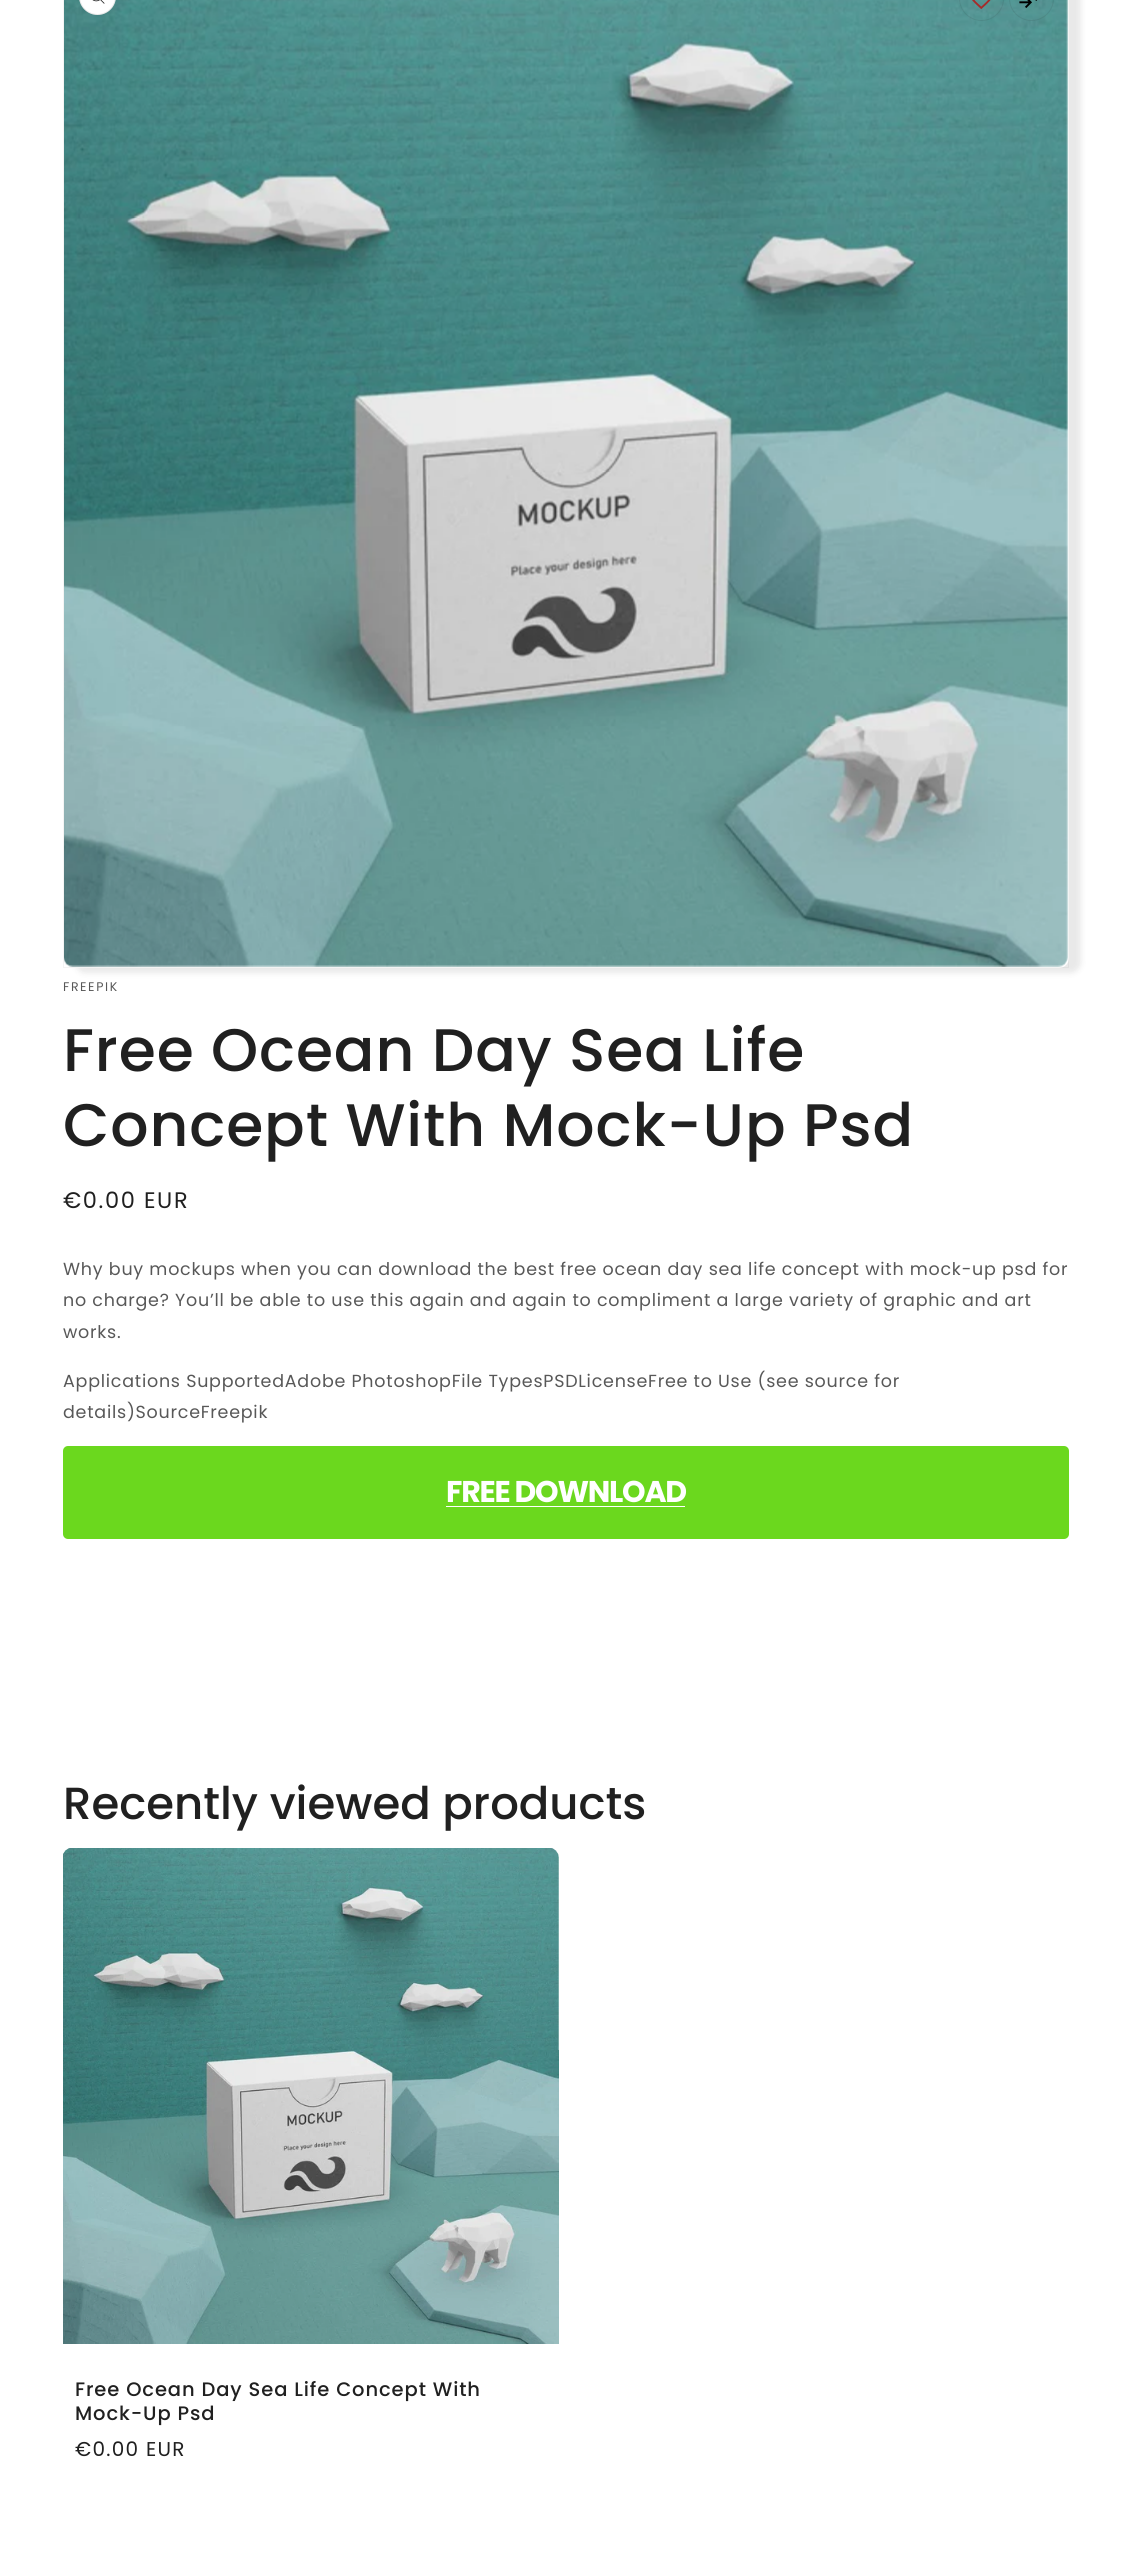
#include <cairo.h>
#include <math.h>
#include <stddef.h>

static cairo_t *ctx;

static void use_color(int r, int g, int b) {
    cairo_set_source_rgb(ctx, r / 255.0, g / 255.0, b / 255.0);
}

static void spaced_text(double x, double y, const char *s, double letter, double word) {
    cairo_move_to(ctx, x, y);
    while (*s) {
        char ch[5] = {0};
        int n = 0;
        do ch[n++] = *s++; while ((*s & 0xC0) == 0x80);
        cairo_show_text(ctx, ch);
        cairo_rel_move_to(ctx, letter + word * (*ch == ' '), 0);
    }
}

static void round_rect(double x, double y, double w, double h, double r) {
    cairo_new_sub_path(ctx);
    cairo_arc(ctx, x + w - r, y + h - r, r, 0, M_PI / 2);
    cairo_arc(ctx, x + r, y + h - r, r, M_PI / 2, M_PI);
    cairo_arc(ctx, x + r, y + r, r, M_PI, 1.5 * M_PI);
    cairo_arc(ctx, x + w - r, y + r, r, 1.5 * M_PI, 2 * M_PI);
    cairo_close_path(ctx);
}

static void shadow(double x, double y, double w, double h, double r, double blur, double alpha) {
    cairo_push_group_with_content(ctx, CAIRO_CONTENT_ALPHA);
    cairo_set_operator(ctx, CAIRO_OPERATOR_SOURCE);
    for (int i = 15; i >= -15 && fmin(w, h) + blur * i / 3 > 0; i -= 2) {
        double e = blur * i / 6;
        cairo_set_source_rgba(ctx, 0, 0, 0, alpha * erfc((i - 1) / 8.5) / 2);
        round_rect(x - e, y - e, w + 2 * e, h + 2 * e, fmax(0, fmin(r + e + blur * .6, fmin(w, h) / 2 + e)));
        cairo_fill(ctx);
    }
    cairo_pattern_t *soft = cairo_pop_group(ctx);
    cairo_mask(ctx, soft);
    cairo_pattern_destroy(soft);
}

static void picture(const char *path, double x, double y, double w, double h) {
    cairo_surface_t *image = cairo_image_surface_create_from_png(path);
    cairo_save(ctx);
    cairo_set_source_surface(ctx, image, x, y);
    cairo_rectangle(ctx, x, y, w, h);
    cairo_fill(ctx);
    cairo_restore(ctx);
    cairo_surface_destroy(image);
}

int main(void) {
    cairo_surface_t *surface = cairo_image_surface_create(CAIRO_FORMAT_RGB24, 1131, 2559);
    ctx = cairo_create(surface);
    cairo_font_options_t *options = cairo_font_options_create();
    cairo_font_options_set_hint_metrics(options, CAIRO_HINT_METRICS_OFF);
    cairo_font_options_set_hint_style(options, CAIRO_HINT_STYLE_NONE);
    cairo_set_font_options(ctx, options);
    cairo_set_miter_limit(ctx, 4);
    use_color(255, 255, 255);
    cairo_paint(ctx);
    use_color(32, 32, 32);
    shadow(75, -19, 1006, 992, 10, 3, 0.1);
    use_color(255, 255, 255);
    round_rect(63, -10, 1006, 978, 10);
    cairo_fill(ctx);
    cairo_rectangle(ctx, 63.5, -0.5, 1005, 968);
    cairo_set_source_rgba(ctx, 0.125, 0.125, 0.125, 0.05);
    cairo_set_line_width(ctx, 1);
    cairo_stroke(ctx);
    picture("img4.png", 64, 0, 1004, 967);
    cairo_arc(ctx, 981.5, -1.5, 22, 0, 2 * M_PI);
    cairo_set_source_rgba(ctx, 0.125, 0.125, 0.125, 0.1);
    cairo_stroke(ctx);
    picture("img1.png", 972, 0, 19, 9);
    cairo_arc(ctx, 1031.5, -1.5, 22, 0, 2 * M_PI);
    cairo_stroke(ctx);
    picture("img2.png", 1019, 0, 19, 8);
    use_color(255, 255, 255);
    round_rect(79, -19, 37, 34, 18.5);
    cairo_fill(ctx);
    round_rect(79.5, -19.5, 36, 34, 18);
    cairo_set_source_rgba(ctx, 0.125, 0.125, 0.125, 0.1);
    cairo_stroke(ctx);
    picture("img3.png", 92, 0, 13, 4);
    cairo_select_font_face(ctx, "Poppins", CAIRO_FONT_SLANT_NORMAL, CAIRO_FONT_WEIGHT_NORMAL);
    cairo_set_font_size(ctx, 12.5);
    use_color(88, 88, 88);
    spaced_text(63, 991, "FREEPIK", 1.6, 0);
    cairo_select_font_face(ctx, "Poppins Medium", CAIRO_FONT_SLANT_NORMAL, CAIRO_FONT_WEIGHT_NORMAL);
    cairo_set_font_size(ctx, 60);
    use_color(32, 32, 32);
    spaced_text(63, 1071, "Free Ocean Day Sea Life", 0.9, 0);
    spaced_text(63, 1146, "Concept With Mock-Up Psd", 0.9, 0);
    cairo_select_font_face(ctx, "Poppins", CAIRO_FONT_SLANT_NORMAL, CAIRO_FONT_WEIGHT_NORMAL);
    cairo_set_font_size(ctx, 22.5);
    spaced_text(63, 1208, "€0.00 EUR", 1.6, 0);
    cairo_set_font_size(ctx, 17.5);
    use_color(88, 88, 88);
    spaced_text(63, 1275, "Why buy mockups when you can download the best free ocean day sea life concept with mock-up psd for", 0.75, 0);
    spaced_text(63, 1306, "no charge? You’ll be able to use this again and again to compliment a large variety of graphic and art", 0.75, 0);
    spaced_text(63, 1338, "works.", 0.75, 0);
    spaced_text(63, 1387, "Applications SupportedAdobe PhotoshopFile TypesPSDLicenseFree to Use (see source for", 0.75, 0);
    spaced_text(63, 1418, "details)SourceFreepik", 0.75, 0);
    use_color(107, 216, 30);
    round_rect(63, 1446, 1006, 93, 5);
    cairo_fill(ctx);
    cairo_select_font_face(ctx, "Poppins", CAIRO_FONT_SLANT_NORMAL, CAIRO_FONT_WEIGHT_BOLD);
    cairo_set_font_size(ctx, 30);
    use_color(255, 255, 255);
    spaced_text(446, 1502, "FREE DOWNLOAD", -1.25, 0);
    cairo_rectangle(ctx, 446, 1506, 239, 1);
    cairo_fill(ctx);
    cairo_select_font_face(ctx, "Poppins Medium", CAIRO_FONT_SLANT_NORMAL, CAIRO_FONT_WEIGHT_NORMAL);
    cairo_set_font_size(ctx, 45);
    use_color(32, 32, 32);
    cairo_move_to(ctx, 63, 1819);
    cairo_show_text(ctx, "Recently viewed products");
    picture("img5.png", 63, 1848, 496, 496);
    cairo_set_font_size(ctx, 19.5);
    spaced_text(75, 2396, "Free Ocean Day Sea Life Concept With", 0.9, 0);
    spaced_text(75, 2420, "Mock-Up Psd", 0.9, 0);
    cairo_select_font_face(ctx, "Poppins", CAIRO_FONT_SLANT_NORMAL, CAIRO_FONT_WEIGHT_NORMAL);
    cairo_set_font_size(ctx, 20);
    spaced_text(75, 2456, "€0.00 EUR", 1.25, 0);
    cairo_surface_write_to_png(surface, "result.png");
    cairo_font_options_destroy(options);
    cairo_destroy(ctx);
    cairo_surface_destroy(surface);
    return 0;
}
